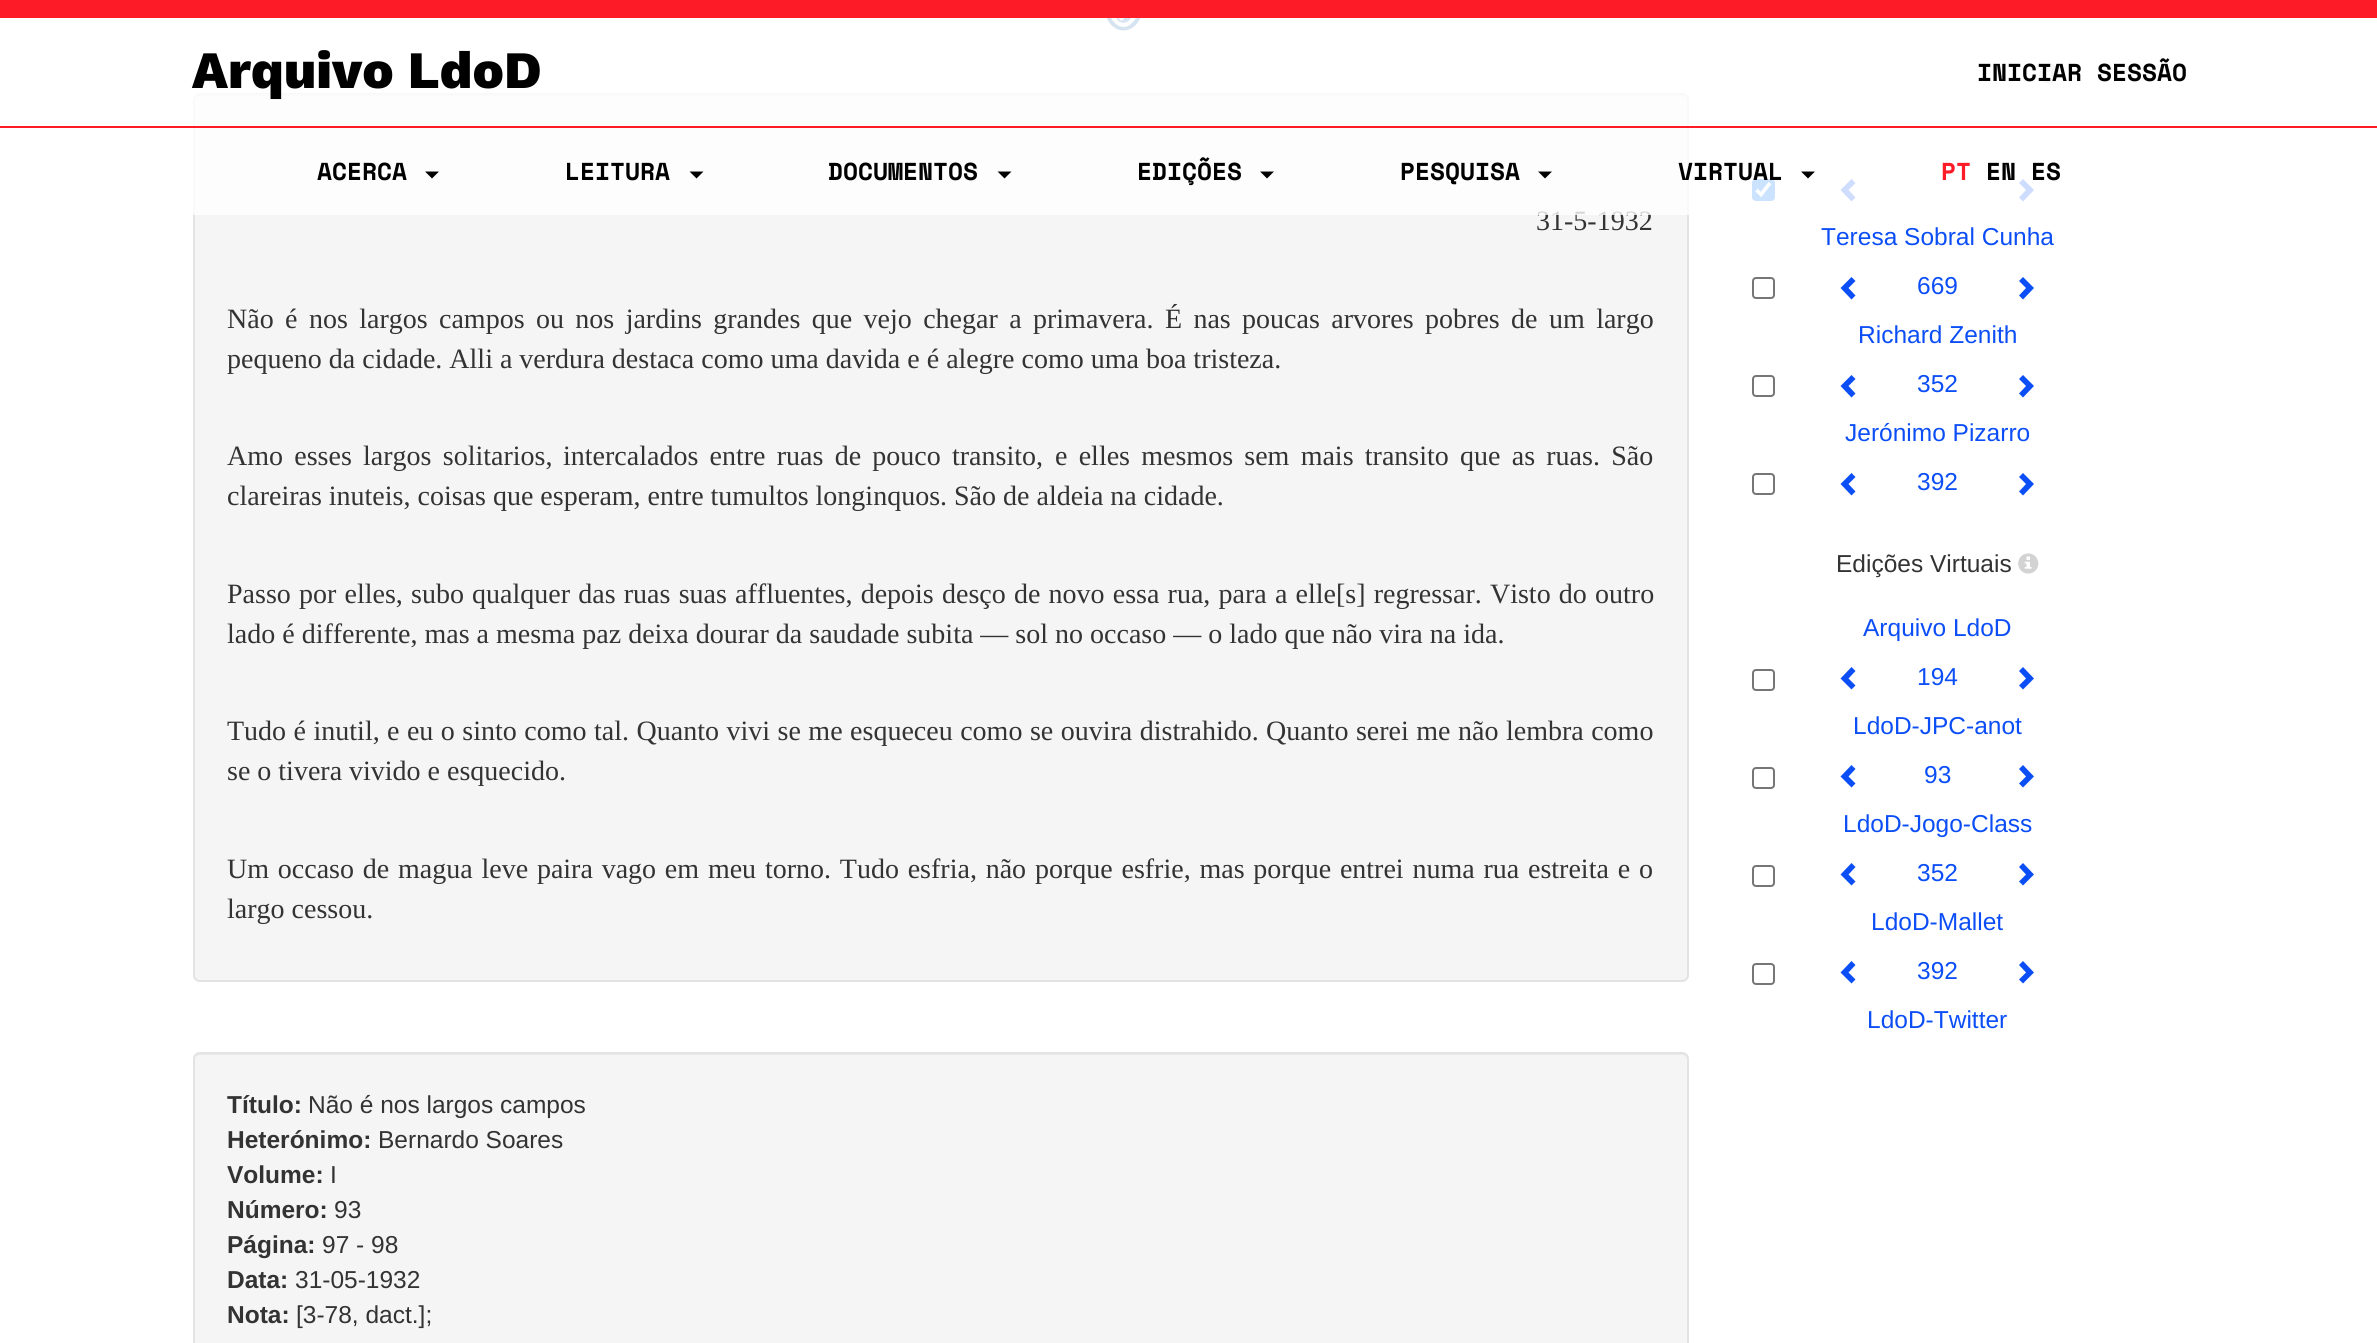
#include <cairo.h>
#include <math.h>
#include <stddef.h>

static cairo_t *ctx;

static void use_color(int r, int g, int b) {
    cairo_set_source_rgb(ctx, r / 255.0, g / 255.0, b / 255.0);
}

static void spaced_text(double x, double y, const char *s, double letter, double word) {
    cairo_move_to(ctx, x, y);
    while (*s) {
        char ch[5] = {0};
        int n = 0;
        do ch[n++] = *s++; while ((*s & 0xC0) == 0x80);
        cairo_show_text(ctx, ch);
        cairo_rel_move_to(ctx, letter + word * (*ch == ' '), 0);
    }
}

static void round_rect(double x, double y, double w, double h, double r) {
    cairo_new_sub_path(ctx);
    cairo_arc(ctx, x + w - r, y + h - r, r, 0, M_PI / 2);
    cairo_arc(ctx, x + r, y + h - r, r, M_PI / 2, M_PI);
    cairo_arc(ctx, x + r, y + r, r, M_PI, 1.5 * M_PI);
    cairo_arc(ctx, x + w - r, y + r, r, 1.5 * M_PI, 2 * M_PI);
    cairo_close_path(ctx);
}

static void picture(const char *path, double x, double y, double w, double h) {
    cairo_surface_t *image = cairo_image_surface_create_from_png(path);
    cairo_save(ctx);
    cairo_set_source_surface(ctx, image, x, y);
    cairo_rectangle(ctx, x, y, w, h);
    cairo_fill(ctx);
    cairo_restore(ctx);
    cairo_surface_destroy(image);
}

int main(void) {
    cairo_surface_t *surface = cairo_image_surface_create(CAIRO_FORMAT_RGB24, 2377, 1343);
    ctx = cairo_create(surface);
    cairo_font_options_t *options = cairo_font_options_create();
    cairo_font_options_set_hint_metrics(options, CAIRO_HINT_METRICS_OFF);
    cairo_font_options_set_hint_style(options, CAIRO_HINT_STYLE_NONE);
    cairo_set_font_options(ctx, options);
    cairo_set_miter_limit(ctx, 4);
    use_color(255, 255, 255);
    cairo_paint(ctx);
    picture("img1.png", 1107, 18, 33, 13);
    use_color(245, 245, 245);
    round_rect(193, 93, 1496, 889, 7);
    cairo_fill(ctx);
    use_color(233, 233, 233);
    cairo_new_path(ctx);
    cairo_move_to(ctx, 200, 96);
    cairo_line_to(ctx, 1682, 96);
    cairo_curve_to(ctx, 1685, 96, 1687, 99, 1687, 102);
    cairo_curve_to(ctx, 1687, 99, 1686, 95, 1682, 95);
    cairo_line_to(ctx, 199, 95);
    cairo_curve_to(ctx, 195, 95, 194, 99, 194, 102);
    cairo_curve_to(ctx, 194, 99, 197, 96, 200, 96);
    cairo_close_path(ctx);
    cairo_fill(ctx);
    round_rect(194, 94, 1494, 887, 6);
    use_color(227, 227, 227);
    cairo_stroke(ctx);
    cairo_select_font_face(ctx, "Liberation Serif", CAIRO_FONT_SLANT_NORMAL, CAIRO_FONT_WEIGHT_NORMAL);
    cairo_set_font_size(ctx, 28);
    use_color(51, 51, 51);
    cairo_move_to(ctx, 1536, 230);
    cairo_show_text(ctx, "31-5-1932");
    picture("img2.png", 2039, 63, 21, 21);
    use_color(0, 117, 255);
    round_rect(1752, 179, 23, 22, 4);
    cairo_fill(ctx);
    cairo_new_path(ctx);
    cairo_move_to(ctx, 1756.5, 190);
    cairo_line_to(ctx, 1761, 194.5);
    cairo_line_to(ctx, 1770, 183);
    use_color(255, 255, 255);
    cairo_set_line_width(ctx, 3.6);
    cairo_stroke(ctx);
    use_color(12, 78, 246);
    cairo_new_path(ctx);
    cairo_move_to(ctx, 1855.5, 183);
    cairo_line_to(ctx, 1848.5, 190);
    cairo_line_to(ctx, 1855.5, 197.5);
    cairo_line_to(ctx, 1851.5, 201.5);
    cairo_line_to(ctx, 1840.5, 190);
    cairo_line_to(ctx, 1851.5, 179);
    cairo_close_path(ctx);
    cairo_fill(ctx);
    cairo_new_path(ctx);
    cairo_move_to(ctx, 2034, 190);
    cairo_line_to(ctx, 2023, 201.5);
    cairo_line_to(ctx, 2019, 197.5);
    cairo_line_to(ctx, 2026, 190);
    cairo_line_to(ctx, 2019, 183);
    cairo_line_to(ctx, 2023, 179);
    cairo_close_path(ctx);
    cairo_fill(ctx);
    cairo_set_source_rgba(ctx, 1, 1, 1, 0.8);
    cairo_rectangle(ctx, 193, 18, 1867, 197);
    cairo_fill(ctx);
    use_color(252, 27, 39);
    cairo_rectangle(ctx, 0, 0, 2377, 18);
    cairo_fill(ctx);
    cairo_rectangle(ctx, 0, 126, 2377, 2);
    cairo_fill(ctx);
    cairo_select_font_face(ctx, "Work Sans ExtraBold", CAIRO_FONT_SLANT_NORMAL, CAIRO_FONT_WEIGHT_NORMAL);
    cairo_set_font_size(ctx, 52.5);
    use_color(0, 0, 0);
    cairo_move_to(ctx, 192, 88);
    cairo_show_text(ctx, "Arquivo LdoD");
    cairo_select_font_face(ctx, "Space Mono", CAIRO_FONT_SLANT_NORMAL, CAIRO_FONT_WEIGHT_BOLD);
    cairo_set_font_size(ctx, 24.5);
    cairo_move_to(ctx, 1977, 81);
    cairo_show_text(ctx, "INICIAR SESSÃO");
    cairo_move_to(ctx, 317, 180);
    cairo_show_text(ctx, "ACERCA");
    cairo_new_path(ctx);
    cairo_move_to(ctx, 425, 171.5);
    cairo_line_to(ctx, 439, 171.5);
    cairo_line_to(ctx, 432, 178.5);
    cairo_close_path(ctx);
    cairo_fill(ctx);
    cairo_move_to(ctx, 565, 180);
    cairo_show_text(ctx, "LEITURA");
    cairo_new_path(ctx);
    cairo_move_to(ctx, 689.5, 171.5);
    cairo_line_to(ctx, 703.5, 171.5);
    cairo_line_to(ctx, 696.5, 178.5);
    cairo_close_path(ctx);
    cairo_fill(ctx);
    cairo_move_to(ctx, 828, 180);
    cairo_show_text(ctx, "DOCUMENTOS");
    cairo_new_path(ctx);
    cairo_move_to(ctx, 997.5, 171.5);
    cairo_line_to(ctx, 1011.5, 171.5);
    cairo_line_to(ctx, 1004.5, 178.5);
    cairo_close_path(ctx);
    cairo_fill(ctx);
    cairo_move_to(ctx, 1137, 180);
    cairo_show_text(ctx, "EDIÇÕES");
    cairo_new_path(ctx);
    cairo_move_to(ctx, 1260, 171.5);
    cairo_line_to(ctx, 1274, 171.5);
    cairo_line_to(ctx, 1267, 178.5);
    cairo_close_path(ctx);
    cairo_fill(ctx);
    cairo_move_to(ctx, 1400, 180);
    cairo_show_text(ctx, "PESQUISA");
    cairo_new_path(ctx);
    cairo_move_to(ctx, 1538, 171.5);
    cairo_line_to(ctx, 1552, 171.5);
    cairo_line_to(ctx, 1545, 178.5);
    cairo_close_path(ctx);
    cairo_fill(ctx);
    cairo_move_to(ctx, 1678, 180);
    cairo_show_text(ctx, "VIRTUAL");
    cairo_new_path(ctx);
    cairo_move_to(ctx, 1801, 171.5);
    cairo_line_to(ctx, 1815, 171.5);
    cairo_line_to(ctx, 1808, 178.5);
    cairo_close_path(ctx);
    cairo_fill(ctx);
    use_color(252, 27, 39);
    cairo_move_to(ctx, 1941, 180);
    cairo_show_text(ctx, "PT");
    use_color(0, 0, 0);
    cairo_move_to(ctx, 1986, 180);
    cairo_show_text(ctx, "EN ES");
    cairo_select_font_face(ctx, "Liberation Serif", CAIRO_FONT_SLANT_NORMAL, CAIRO_FONT_WEIGHT_NORMAL);
    cairo_set_font_size(ctx, 28);
    use_color(51, 51, 51);
    spaced_text(227, 328, "Não é nos largos campos ou nos jardins grandes que vejo chegar a primavera. É nas poucas arvores pobres de um largo", 0, 4.4);
    cairo_move_to(ctx, 227, 368);
    cairo_show_text(ctx, "pequeno da cidade. Alli a verdura destaca como uma davida e é alegre como uma boa tristeza.");
    spaced_text(227, 465, "Amo esses largos solitarios,", 0, 4.25);
    spaced_text(563, 465, "intercalados entre ruas de pouco transito,", 0, 4.25);
    spaced_text(1055, 465, "e elles mesmos sem mais transito que as ruas. São", 0, 4.25);
    cairo_move_to(ctx, 227, 505);
    cairo_show_text(ctx, "clareiras inuteis, coisas que esperam, entre tumultos longinquos. São de aldeia na cidade.");
    spaced_text(227, 603, "Passo por elles,", 0, 1.2);
    spaced_text(411, 603, "subo qualquer das ruas suas affluentes, depois desço de novo essa rua, para a elle[s] regressar. Visto do outro", 0, 1.2);
    cairo_move_to(ctx, 227, 643);
    cairo_show_text(ctx, "lado é differente, mas a mesma paz deixa dourar da saudade subita — sol no occaso — o lado que não vira na ida.");
    spaced_text(227, 740, "Tudo é inutil,", 0, 0.5);
    spaced_text(387, 740, "e eu o sinto como tal. Quanto vivi se me esqueceu como se ouvira distrahido.", 0, 0.5);
    spaced_text(1266, 740, "Quanto serei me não lembra como", 0, 0.5);
    cairo_move_to(ctx, 227, 780);
    cairo_show_text(ctx, "se o tivera vivido e esquecido.");
    spaced_text(227, 878, "Um occaso de magua leve paira vago em meu torno. Tudo esfria, não porque esfrie, mas porque entrei numa rua estreita e o", 0, 1.8);
    cairo_move_to(ctx, 227, 918);
    cairo_show_text(ctx, "largo cessou.");
    use_color(245, 245, 245);
    round_rect(193, 1052, 1496, 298, 7);
    cairo_fill(ctx);
    use_color(233, 233, 233);
    cairo_new_path(ctx);
    cairo_move_to(ctx, 200, 1055);
    cairo_line_to(ctx, 1682, 1055);
    cairo_curve_to(ctx, 1685, 1055, 1687, 1058, 1687, 1060);
    cairo_line_to(ctx, 1687, 1059);
    cairo_curve_to(ctx, 1687, 1056, 1685, 1054, 1682, 1054);
    cairo_line_to(ctx, 199, 1054);
    cairo_curve_to(ctx, 196, 1054, 194, 1056, 194, 1059);
    cairo_line_to(ctx, 194, 1060);
    cairo_curve_to(ctx, 194, 1058, 197, 1055, 200, 1055);
    cairo_close_path(ctx);
    cairo_fill(ctx);
    round_rect(194, 1053, 1494, 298, 6);
    use_color(227, 227, 227);
    cairo_set_line_width(ctx, 2);
    cairo_stroke(ctx);
    cairo_select_font_face(ctx, "Liberation Sans", CAIRO_FONT_SLANT_NORMAL, CAIRO_FONT_WEIGHT_BOLD);
    cairo_set_font_size(ctx, 24.5);
    use_color(51, 51, 51);
    cairo_move_to(ctx, 227, 1113);
    cairo_show_text(ctx, "Título:");
    cairo_select_font_face(ctx, "Liberation Sans", CAIRO_FONT_SLANT_NORMAL, CAIRO_FONT_WEIGHT_NORMAL);
    cairo_move_to(ctx, 308, 1113);
    cairo_show_text(ctx, "Não é nos largos campos");
    cairo_select_font_face(ctx, "Liberation Sans", CAIRO_FONT_SLANT_NORMAL, CAIRO_FONT_WEIGHT_BOLD);
    cairo_move_to(ctx, 227, 1148);
    cairo_show_text(ctx, "Heterónimo:");
    cairo_select_font_face(ctx, "Liberation Sans", CAIRO_FONT_SLANT_NORMAL, CAIRO_FONT_WEIGHT_NORMAL);
    cairo_move_to(ctx, 378, 1148);
    cairo_show_text(ctx, "Bernardo Soares");
    cairo_select_font_face(ctx, "Liberation Sans", CAIRO_FONT_SLANT_NORMAL, CAIRO_FONT_WEIGHT_BOLD);
    cairo_move_to(ctx, 227, 1183);
    cairo_show_text(ctx, "Volume:");
    cairo_select_font_face(ctx, "Liberation Sans", CAIRO_FONT_SLANT_NORMAL, CAIRO_FONT_WEIGHT_NORMAL);
    cairo_move_to(ctx, 330, 1183);
    cairo_show_text(ctx, "I");
    cairo_select_font_face(ctx, "Liberation Sans", CAIRO_FONT_SLANT_NORMAL, CAIRO_FONT_WEIGHT_BOLD);
    cairo_move_to(ctx, 227, 1218);
    cairo_show_text(ctx, "Número:");
    cairo_select_font_face(ctx, "Liberation Sans", CAIRO_FONT_SLANT_NORMAL, CAIRO_FONT_WEIGHT_NORMAL);
    cairo_move_to(ctx, 334, 1218);
    cairo_show_text(ctx, "93");
    cairo_select_font_face(ctx, "Liberation Sans", CAIRO_FONT_SLANT_NORMAL, CAIRO_FONT_WEIGHT_BOLD);
    cairo_move_to(ctx, 227, 1253);
    cairo_show_text(ctx, "Página:");
    cairo_select_font_face(ctx, "Liberation Sans", CAIRO_FONT_SLANT_NORMAL, CAIRO_FONT_WEIGHT_NORMAL);
    cairo_move_to(ctx, 322, 1253);
    cairo_show_text(ctx, "97 - 98");
    cairo_select_font_face(ctx, "Liberation Sans", CAIRO_FONT_SLANT_NORMAL, CAIRO_FONT_WEIGHT_BOLD);
    cairo_move_to(ctx, 227, 1288);
    cairo_show_text(ctx, "Data:");
    cairo_select_font_face(ctx, "Liberation Sans", CAIRO_FONT_SLANT_NORMAL, CAIRO_FONT_WEIGHT_NORMAL);
    cairo_move_to(ctx, 295, 1288);
    cairo_show_text(ctx, "31-05-1932");
    cairo_select_font_face(ctx, "Liberation Sans", CAIRO_FONT_SLANT_NORMAL, CAIRO_FONT_WEIGHT_BOLD);
    cairo_move_to(ctx, 227, 1323);
    cairo_show_text(ctx, "Nota:");
    cairo_select_font_face(ctx, "Liberation Sans", CAIRO_FONT_SLANT_NORMAL, CAIRO_FONT_WEIGHT_NORMAL);
    cairo_move_to(ctx, 296, 1323);
    cairo_show_text(ctx, "[3-78, dact.];");
    use_color(12, 78, 246);
    cairo_move_to(ctx, 1821, 245);
    cairo_show_text(ctx, "Teresa Sobral Cunha");
    round_rect(1753, 278, 21, 20, 3);
    use_color(118, 118, 118);
    cairo_stroke(ctx);
    use_color(12, 78, 246);
    cairo_new_path(ctx);
    cairo_move_to(ctx, 1855.5, 281);
    cairo_line_to(ctx, 1848.5, 288);
    cairo_line_to(ctx, 1855.5, 295.5);
    cairo_line_to(ctx, 1851.5, 299.5);
    cairo_line_to(ctx, 1840.5, 288);
    cairo_line_to(ctx, 1851.5, 277);
    cairo_close_path(ctx);
    cairo_fill(ctx);
    cairo_move_to(ctx, 1917, 294);
    cairo_show_text(ctx, "669");
    cairo_new_path(ctx);
    cairo_move_to(ctx, 2034, 288);
    cairo_line_to(ctx, 2023, 299.5);
    cairo_line_to(ctx, 2019, 295.5);
    cairo_line_to(ctx, 2026, 288);
    cairo_line_to(ctx, 2019, 281);
    cairo_line_to(ctx, 2023, 277);
    cairo_close_path(ctx);
    cairo_fill(ctx);
    cairo_move_to(ctx, 1858, 343);
    cairo_show_text(ctx, "Richard Zenith");
    round_rect(1753, 376, 21, 20, 3);
    use_color(118, 118, 118);
    cairo_stroke(ctx);
    use_color(12, 78, 246);
    cairo_new_path(ctx);
    cairo_move_to(ctx, 1855.5, 379);
    cairo_line_to(ctx, 1848.5, 386);
    cairo_line_to(ctx, 1855.5, 393.5);
    cairo_line_to(ctx, 1851.5, 397.5);
    cairo_line_to(ctx, 1840.5, 386);
    cairo_line_to(ctx, 1851.5, 375);
    cairo_close_path(ctx);
    cairo_fill(ctx);
    cairo_move_to(ctx, 1917, 392);
    cairo_show_text(ctx, "352");
    cairo_new_path(ctx);
    cairo_move_to(ctx, 2034, 386);
    cairo_line_to(ctx, 2023, 397.5);
    cairo_line_to(ctx, 2019, 393.5);
    cairo_line_to(ctx, 2026, 386);
    cairo_line_to(ctx, 2019, 379);
    cairo_line_to(ctx, 2023, 375);
    cairo_close_path(ctx);
    cairo_fill(ctx);
    cairo_move_to(ctx, 1845, 441);
    cairo_show_text(ctx, "Jerónimo Pizarro");
    round_rect(1753, 474, 21, 20, 3);
    use_color(118, 118, 118);
    cairo_stroke(ctx);
    use_color(12, 78, 246);
    cairo_new_path(ctx);
    cairo_move_to(ctx, 1855.5, 477);
    cairo_line_to(ctx, 1848.5, 484);
    cairo_line_to(ctx, 1855.5, 491.5);
    cairo_line_to(ctx, 1851.5, 495.5);
    cairo_line_to(ctx, 1840.5, 484);
    cairo_line_to(ctx, 1851.5, 473);
    cairo_close_path(ctx);
    cairo_fill(ctx);
    cairo_move_to(ctx, 1917, 490);
    cairo_show_text(ctx, "392");
    cairo_new_path(ctx);
    cairo_move_to(ctx, 2034, 484);
    cairo_line_to(ctx, 2023, 495.5);
    cairo_line_to(ctx, 2019, 491.5);
    cairo_line_to(ctx, 2026, 484);
    cairo_line_to(ctx, 2019, 477);
    cairo_line_to(ctx, 2023, 473);
    cairo_close_path(ctx);
    cairo_fill(ctx);
    use_color(51, 51, 51);
    cairo_move_to(ctx, 1836, 572);
    cairo_show_text(ctx, "Edições Virtuais");
    picture("img2.png", 2018, 553, 21, 21);
    use_color(12, 78, 246);
    cairo_move_to(ctx, 1863, 636);
    cairo_show_text(ctx, "Arquivo LdoD");
    round_rect(1753, 670, 21, 20, 3);
    use_color(118, 118, 118);
    cairo_stroke(ctx);
    use_color(12, 78, 246);
    cairo_new_path(ctx);
    cairo_move_to(ctx, 1855.5, 671);
    cairo_line_to(ctx, 1848.5, 678.5);
    cairo_line_to(ctx, 1855.5, 685.5);
    cairo_line_to(ctx, 1851.5, 689.5);
    cairo_line_to(ctx, 1840.5, 678.5);
    cairo_line_to(ctx, 1851.5, 667);
    cairo_close_path(ctx);
    cairo_fill(ctx);
    cairo_move_to(ctx, 1917, 685);
    cairo_show_text(ctx, "194");
    cairo_new_path(ctx);
    cairo_move_to(ctx, 2034, 678.5);
    cairo_line_to(ctx, 2023, 689.5);
    cairo_line_to(ctx, 2019, 685.5);
    cairo_line_to(ctx, 2026, 678.5);
    cairo_line_to(ctx, 2019, 671);
    cairo_line_to(ctx, 2023, 667);
    cairo_close_path(ctx);
    cairo_fill(ctx);
    cairo_move_to(ctx, 1853, 734);
    cairo_show_text(ctx, "LdoD-JPC-anot");
    round_rect(1753, 768, 21, 20, 3);
    use_color(118, 118, 118);
    cairo_stroke(ctx);
    use_color(12, 78, 246);
    cairo_new_path(ctx);
    cairo_move_to(ctx, 1855.5, 769);
    cairo_line_to(ctx, 1848.5, 776.5);
    cairo_line_to(ctx, 1855.5, 783.5);
    cairo_line_to(ctx, 1851.5, 787.5);
    cairo_line_to(ctx, 1840.5, 776.5);
    cairo_line_to(ctx, 1851.5, 765);
    cairo_close_path(ctx);
    cairo_fill(ctx);
    cairo_move_to(ctx, 1924, 783);
    cairo_show_text(ctx, "93");
    cairo_new_path(ctx);
    cairo_move_to(ctx, 2034, 776.5);
    cairo_line_to(ctx, 2023, 787.5);
    cairo_line_to(ctx, 2019, 783.5);
    cairo_line_to(ctx, 2026, 776.5);
    cairo_line_to(ctx, 2019, 769);
    cairo_line_to(ctx, 2023, 765);
    cairo_close_path(ctx);
    cairo_fill(ctx);
    cairo_move_to(ctx, 1843, 832);
    cairo_show_text(ctx, "LdoD-Jogo-Class");
    round_rect(1753, 866, 21, 20, 3);
    use_color(118, 118, 118);
    cairo_stroke(ctx);
    use_color(12, 78, 246);
    cairo_new_path(ctx);
    cairo_move_to(ctx, 1855.5, 867);
    cairo_line_to(ctx, 1848.5, 874.5);
    cairo_line_to(ctx, 1855.5, 881.5);
    cairo_line_to(ctx, 1851.5, 885.5);
    cairo_line_to(ctx, 1840.5, 874.5);
    cairo_line_to(ctx, 1851.5, 863);
    cairo_close_path(ctx);
    cairo_fill(ctx);
    cairo_move_to(ctx, 1917, 881);
    cairo_show_text(ctx, "352");
    cairo_new_path(ctx);
    cairo_move_to(ctx, 2034, 874.5);
    cairo_line_to(ctx, 2023, 885.5);
    cairo_line_to(ctx, 2019, 881.5);
    cairo_line_to(ctx, 2026, 874.5);
    cairo_line_to(ctx, 2019, 867);
    cairo_line_to(ctx, 2023, 863);
    cairo_close_path(ctx);
    cairo_fill(ctx);
    cairo_move_to(ctx, 1871, 930);
    cairo_show_text(ctx, "LdoD-Mallet");
    round_rect(1753, 964, 21, 20, 3);
    use_color(118, 118, 118);
    cairo_stroke(ctx);
    use_color(12, 78, 246);
    cairo_new_path(ctx);
    cairo_move_to(ctx, 1855.5, 965);
    cairo_line_to(ctx, 1848.5, 972.5);
    cairo_line_to(ctx, 1855.5, 979.5);
    cairo_line_to(ctx, 1851.5, 983.5);
    cairo_line_to(ctx, 1840.5, 972.5);
    cairo_line_to(ctx, 1851.5, 961);
    cairo_close_path(ctx);
    cairo_fill(ctx);
    cairo_move_to(ctx, 1917, 979);
    cairo_show_text(ctx, "392");
    cairo_new_path(ctx);
    cairo_move_to(ctx, 2034, 972.5);
    cairo_line_to(ctx, 2023, 983.5);
    cairo_line_to(ctx, 2019, 979.5);
    cairo_line_to(ctx, 2026, 972.5);
    cairo_line_to(ctx, 2019, 965);
    cairo_line_to(ctx, 2023, 961);
    cairo_close_path(ctx);
    cairo_fill(ctx);
    cairo_move_to(ctx, 1867, 1028);
    cairo_show_text(ctx, "LdoD-Twitter");
    cairo_surface_write_to_png(surface, "result.png");
    cairo_font_options_destroy(options);
    cairo_destroy(ctx);
    cairo_surface_destroy(surface);
    return 0;
}
